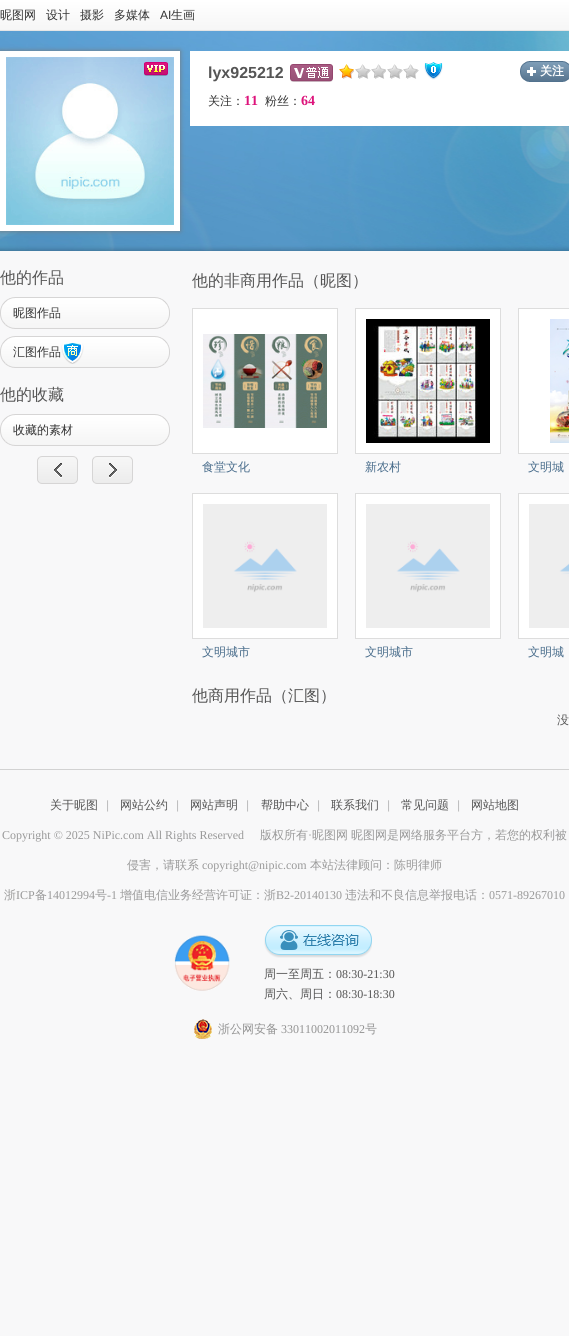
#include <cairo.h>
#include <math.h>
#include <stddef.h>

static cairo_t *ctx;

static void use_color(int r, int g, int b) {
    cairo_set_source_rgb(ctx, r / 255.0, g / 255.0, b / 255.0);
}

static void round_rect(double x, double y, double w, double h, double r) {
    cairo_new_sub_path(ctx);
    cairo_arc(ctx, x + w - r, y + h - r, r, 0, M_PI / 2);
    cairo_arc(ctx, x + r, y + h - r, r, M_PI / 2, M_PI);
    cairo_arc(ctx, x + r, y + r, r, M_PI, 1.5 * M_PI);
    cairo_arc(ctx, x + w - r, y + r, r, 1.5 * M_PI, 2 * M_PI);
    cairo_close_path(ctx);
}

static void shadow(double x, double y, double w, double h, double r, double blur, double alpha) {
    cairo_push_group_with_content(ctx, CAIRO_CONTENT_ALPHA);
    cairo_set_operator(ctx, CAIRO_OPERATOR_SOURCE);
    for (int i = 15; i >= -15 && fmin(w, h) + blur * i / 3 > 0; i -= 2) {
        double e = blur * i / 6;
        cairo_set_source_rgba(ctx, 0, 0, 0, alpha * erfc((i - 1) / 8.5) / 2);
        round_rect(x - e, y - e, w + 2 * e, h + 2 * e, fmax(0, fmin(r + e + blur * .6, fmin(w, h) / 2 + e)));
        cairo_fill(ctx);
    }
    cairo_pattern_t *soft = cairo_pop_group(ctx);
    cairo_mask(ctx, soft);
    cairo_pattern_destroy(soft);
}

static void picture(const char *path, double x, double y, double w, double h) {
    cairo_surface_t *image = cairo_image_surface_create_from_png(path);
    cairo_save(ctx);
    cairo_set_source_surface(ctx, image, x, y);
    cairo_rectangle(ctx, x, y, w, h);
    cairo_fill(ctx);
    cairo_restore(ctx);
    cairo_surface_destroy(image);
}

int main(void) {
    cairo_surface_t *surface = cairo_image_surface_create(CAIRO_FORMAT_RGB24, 569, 1336);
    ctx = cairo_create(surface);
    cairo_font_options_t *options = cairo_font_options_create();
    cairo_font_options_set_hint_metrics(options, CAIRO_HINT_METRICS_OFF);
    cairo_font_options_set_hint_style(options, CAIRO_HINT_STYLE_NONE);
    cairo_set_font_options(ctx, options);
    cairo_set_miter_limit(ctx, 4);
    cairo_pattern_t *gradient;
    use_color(248, 248, 249);
    cairo_paint(ctx);
    picture("img1.png", 0, 31, 569, 220);
    use_color(229, 229, 229);
    cairo_rectangle(ctx, 0, 30, 569, 1);
    cairo_fill(ctx);
    gradient = cairo_pattern_create_linear(495, 0, 495, 30);
    cairo_pattern_add_color_stop_rgba(gradient, 0, 1, 1, 1, 1);
    cairo_pattern_add_color_stop_rgba(gradient, 1, 0.965, 0.965, 0.965, 1);
    cairo_set_source(ctx, gradient);
    cairo_pattern_destroy(gradient);
    cairo_rectangle(ctx, 0, 0, 569, 30);
    cairo_fill(ctx);
    cairo_select_font_face(ctx, "WenQuanYi Zen Hei Medium", CAIRO_FONT_SLANT_NORMAL, CAIRO_FONT_WEIGHT_NORMAL);
    cairo_set_font_size(ctx, 12);
    use_color(51, 51, 51);
    cairo_move_to(ctx, 0, 19);
    cairo_show_text(ctx, "昵图网");
    cairo_move_to(ctx, 46, 19);
    cairo_show_text(ctx, "设计");
    cairo_move_to(ctx, 80, 19);
    cairo_show_text(ctx, "摄影");
    cairo_move_to(ctx, 114, 19);
    cairo_show_text(ctx, "多媒体");
    cairo_select_font_face(ctx, "Liberation Sans", CAIRO_FONT_SLANT_NORMAL, CAIRO_FONT_WEIGHT_NORMAL);
    cairo_move_to(ctx, 160, 19);
    cairo_show_text(ctx, "AI");
    cairo_select_font_face(ctx, "WenQuanYi Zen Hei Medium", CAIRO_FONT_SLANT_NORMAL, CAIRO_FONT_WEIGHT_NORMAL);
    cairo_move_to(ctx, 171, 19);
    cairo_show_text(ctx, "生画");
    use_color(119, 119, 119);
    shadow(0, 51, 180, 180, 0, 2.5, 1);
    use_color(255, 255, 255);
    cairo_rectangle(ctx, 0, 51, 180, 180);
    cairo_fill(ctx);
    picture("img2.png", 6, 57, 168, 168);
    picture("img3.png", 144, 62, 24, 14);
    cairo_rectangle(ctx, 190, 51, 379, 75);
    cairo_fill(ctx);
    cairo_select_font_face(ctx, "Liberation Sans", CAIRO_FONT_SLANT_NORMAL, CAIRO_FONT_WEIGHT_BOLD);
    cairo_set_font_size(ctx, 16);
    use_color(85, 85, 85);
    cairo_move_to(ctx, 208, 78);
    cairo_show_text(ctx, "lyx925212");
    picture("img4.png", 290, 64, 43, 18);
    picture("img5.png", 339, 64, 80, 15);
    picture("img6.png", 424, 62, 19, 18);
    picture("img7.png", 520, 61, 49, 21);
    cairo_select_font_face(ctx, "WenQuanYi Zen Hei", CAIRO_FONT_SLANT_NORMAL, CAIRO_FONT_WEIGHT_BOLD);
    cairo_set_font_size(ctx, 12);
    use_color(255, 255, 255);
    cairo_move_to(ctx, 540, 75);
    cairo_show_text(ctx, "关注");
    cairo_select_font_face(ctx, "WenQuanYi Zen Hei Medium", CAIRO_FONT_SLANT_NORMAL, CAIRO_FONT_WEIGHT_NORMAL);
    use_color(51, 51, 51);
    cairo_move_to(ctx, 208, 105);
    cairo_show_text(ctx, "关注：");
    cairo_select_font_face(ctx, "Liberation Serif", CAIRO_FONT_SLANT_NORMAL, CAIRO_FONT_WEIGHT_BOLD);
    cairo_set_font_size(ctx, 14);
    use_color(221, 19, 123);
    cairo_move_to(ctx, 244, 105);
    cairo_show_text(ctx, "11");
    cairo_select_font_face(ctx, "WenQuanYi Zen Hei Medium", CAIRO_FONT_SLANT_NORMAL, CAIRO_FONT_WEIGHT_NORMAL);
    cairo_set_font_size(ctx, 12);
    use_color(51, 51, 51);
    cairo_move_to(ctx, 265, 105);
    cairo_show_text(ctx, "粉丝：");
    cairo_select_font_face(ctx, "Liberation Serif", CAIRO_FONT_SLANT_NORMAL, CAIRO_FONT_WEIGHT_BOLD);
    cairo_set_font_size(ctx, 14);
    use_color(221, 19, 123);
    cairo_move_to(ctx, 301, 105);
    cairo_show_text(ctx, "64");
    cairo_select_font_face(ctx, "WenQuanYi Zen Hei Medium", CAIRO_FONT_SLANT_NORMAL, CAIRO_FONT_WEIGHT_NORMAL);
    cairo_set_font_size(ctx, 16);
    use_color(85, 85, 85);
    cairo_move_to(ctx, 0, 283);
    cairo_show_text(ctx, "他的作品");
    picture("img8.png", 0, 297, 170, 32);
    cairo_set_font_size(ctx, 12);
    use_color(51, 51, 51);
    cairo_move_to(ctx, 13, 317);
    cairo_show_text(ctx, "昵图作品");
    picture("img8.png", 0, 336, 170, 32);
    cairo_move_to(ctx, 13, 356);
    cairo_show_text(ctx, "汇图作品");
    picture("img9.png", 61, 343, 23, 21);
    cairo_set_font_size(ctx, 16);
    use_color(85, 85, 85);
    cairo_move_to(ctx, 0, 400);
    cairo_show_text(ctx, "他的收藏");
    picture("img8.png", 0, 414, 170, 32);
    cairo_set_font_size(ctx, 12);
    use_color(51, 51, 51);
    cairo_move_to(ctx, 13, 434);
    cairo_show_text(ctx, "收藏的素材");
    picture("img10.png", 37, 456, 41, 28);
    picture("img11.png", 92, 456, 41, 28);
    cairo_set_font_size(ctx, 16);
    use_color(85, 85, 85);
    cairo_move_to(ctx, 192, 286);
    cairo_show_text(ctx, "他的非商用作品（昵图）");
    use_color(255, 255, 255);
    cairo_rectangle(ctx, 192.5, 308.5, 145, 145);
    cairo_fill_preserve(ctx);
    use_color(221, 221, 221);
    cairo_set_line_width(ctx, 1);
    cairo_stroke(ctx);
    picture("img12.png", 203, 334, 124, 94);
    cairo_set_font_size(ctx, 12);
    use_color(72, 108, 139);
    cairo_move_to(ctx, 202, 471);
    cairo_show_text(ctx, "食堂文化");
    use_color(255, 255, 255);
    cairo_rectangle(ctx, 355.5, 308.5, 145, 145);
    cairo_fill_preserve(ctx);
    use_color(221, 221, 221);
    cairo_stroke(ctx);
    picture("img13.png", 366, 319, 124, 124);
    use_color(72, 108, 139);
    cairo_move_to(ctx, 365, 471);
    cairo_show_text(ctx, "新农村");
    use_color(255, 255, 255);
    cairo_rectangle(ctx, 518.5, 308.5, 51, 145);
    cairo_fill_preserve(ctx);
    use_color(221, 221, 221);
    cairo_stroke(ctx);
    picture("img14.png", 550, 319, 19, 124);
    use_color(72, 108, 139);
    cairo_move_to(ctx, 528, 471);
    cairo_show_text(ctx, "文明城");
    use_color(255, 255, 255);
    cairo_rectangle(ctx, 192.5, 493.5, 145, 145);
    cairo_fill_preserve(ctx);
    use_color(221, 221, 221);
    cairo_stroke(ctx);
    picture("img15.png", 203, 504, 124, 124);
    use_color(72, 108, 139);
    cairo_move_to(ctx, 202, 656);
    cairo_show_text(ctx, "文明城市");
    use_color(255, 255, 255);
    cairo_rectangle(ctx, 355.5, 493.5, 145, 145);
    cairo_fill_preserve(ctx);
    use_color(221, 221, 221);
    cairo_stroke(ctx);
    picture("img16.png", 366, 504, 124, 124);
    use_color(72, 108, 139);
    cairo_move_to(ctx, 365, 656);
    cairo_show_text(ctx, "文明城市");
    use_color(255, 255, 255);
    cairo_rectangle(ctx, 518.5, 493.5, 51, 145);
    cairo_fill_preserve(ctx);
    use_color(221, 221, 221);
    cairo_stroke(ctx);
    picture("img17.png", 529, 504, 40, 124);
    use_color(72, 108, 139);
    cairo_move_to(ctx, 528, 656);
    cairo_show_text(ctx, "文明城");
    cairo_set_font_size(ctx, 16);
    use_color(85, 85, 85);
    cairo_move_to(ctx, 192, 701);
    cairo_show_text(ctx, "他商用作品（汇图）");
    cairo_set_font_size(ctx, 12);
    cairo_move_to(ctx, 557, 724);
    cairo_show_text(ctx, "没");
    use_color(210, 210, 210);
    cairo_rectangle(ctx, 0, 769, 569, 1);
    cairo_fill(ctx);
    use_color(85, 85, 85);
    cairo_move_to(ctx, 50, 809);
    cairo_show_text(ctx, "关于昵图");
    cairo_select_font_face(ctx, "Liberation Sans", CAIRO_FONT_SLANT_NORMAL, CAIRO_FONT_WEIGHT_NORMAL);
    use_color(187, 187, 187);
    cairo_move_to(ctx, 106, 809);
    cairo_show_text(ctx, "|");
    cairo_select_font_face(ctx, "WenQuanYi Zen Hei Medium", CAIRO_FONT_SLANT_NORMAL, CAIRO_FONT_WEIGHT_NORMAL);
    use_color(85, 85, 85);
    cairo_move_to(ctx, 120, 809);
    cairo_show_text(ctx, "网站公约");
    cairo_select_font_face(ctx, "Liberation Sans", CAIRO_FONT_SLANT_NORMAL, CAIRO_FONT_WEIGHT_NORMAL);
    use_color(187, 187, 187);
    cairo_move_to(ctx, 176, 809);
    cairo_show_text(ctx, "|");
    cairo_select_font_face(ctx, "WenQuanYi Zen Hei Medium", CAIRO_FONT_SLANT_NORMAL, CAIRO_FONT_WEIGHT_NORMAL);
    use_color(85, 85, 85);
    cairo_move_to(ctx, 190, 809);
    cairo_show_text(ctx, "网站声明");
    cairo_select_font_face(ctx, "Liberation Sans", CAIRO_FONT_SLANT_NORMAL, CAIRO_FONT_WEIGHT_NORMAL);
    use_color(187, 187, 187);
    cairo_move_to(ctx, 246, 809);
    cairo_show_text(ctx, "|");
    cairo_select_font_face(ctx, "WenQuanYi Zen Hei Medium", CAIRO_FONT_SLANT_NORMAL, CAIRO_FONT_WEIGHT_NORMAL);
    use_color(85, 85, 85);
    cairo_move_to(ctx, 261, 809);
    cairo_show_text(ctx, "帮助中心");
    cairo_select_font_face(ctx, "Liberation Sans", CAIRO_FONT_SLANT_NORMAL, CAIRO_FONT_WEIGHT_NORMAL);
    use_color(187, 187, 187);
    cairo_move_to(ctx, 317, 809);
    cairo_show_text(ctx, "|");
    cairo_select_font_face(ctx, "WenQuanYi Zen Hei Medium", CAIRO_FONT_SLANT_NORMAL, CAIRO_FONT_WEIGHT_NORMAL);
    use_color(85, 85, 85);
    cairo_move_to(ctx, 331, 809);
    cairo_show_text(ctx, "联系我们");
    cairo_select_font_face(ctx, "Liberation Sans", CAIRO_FONT_SLANT_NORMAL, CAIRO_FONT_WEIGHT_NORMAL);
    use_color(187, 187, 187);
    cairo_move_to(ctx, 387, 809);
    cairo_show_text(ctx, "|");
    cairo_select_font_face(ctx, "WenQuanYi Zen Hei Medium", CAIRO_FONT_SLANT_NORMAL, CAIRO_FONT_WEIGHT_NORMAL);
    use_color(85, 85, 85);
    cairo_move_to(ctx, 401, 809);
    cairo_show_text(ctx, "常见问题");
    cairo_select_font_face(ctx, "Liberation Sans", CAIRO_FONT_SLANT_NORMAL, CAIRO_FONT_WEIGHT_NORMAL);
    use_color(187, 187, 187);
    cairo_move_to(ctx, 457, 809);
    cairo_show_text(ctx, "|");
    cairo_select_font_face(ctx, "WenQuanYi Zen Hei Medium", CAIRO_FONT_SLANT_NORMAL, CAIRO_FONT_WEIGHT_NORMAL);
    use_color(85, 85, 85);
    cairo_move_to(ctx, 471, 809);
    cairo_show_text(ctx, "网站地图");
    cairo_select_font_face(ctx, "Liberation Serif", CAIRO_FONT_SLANT_NORMAL, CAIRO_FONT_WEIGHT_NORMAL);
    use_color(153, 153, 153);
    cairo_move_to(ctx, 2, 839);
    cairo_show_text(ctx, "Copyright © 2025 NiPic.com All Rights Reserved");
    cairo_select_font_face(ctx, "WenQuanYi Zen Hei Medium", CAIRO_FONT_SLANT_NORMAL, CAIRO_FONT_WEIGHT_NORMAL);
    cairo_move_to(ctx, 260, 839);
    cairo_show_text(ctx, "版权所有");
    cairo_select_font_face(ctx, "Liberation Serif", CAIRO_FONT_SLANT_NORMAL, CAIRO_FONT_WEIGHT_NORMAL);
    cairo_move_to(ctx, 308, 839);
    cairo_show_text(ctx, "·");
    cairo_select_font_face(ctx, "WenQuanYi Zen Hei Medium", CAIRO_FONT_SLANT_NORMAL, CAIRO_FONT_WEIGHT_NORMAL);
    cairo_move_to(ctx, 312, 839);
    cairo_show_text(ctx, "昵图网");
    cairo_move_to(ctx, 351, 839);
    cairo_show_text(ctx, "昵图网是网络服务平台方，若您的权利被");
    cairo_move_to(ctx, 127, 869);
    cairo_show_text(ctx, "侵害，请联系");
    cairo_select_font_face(ctx, "Liberation Serif", CAIRO_FONT_SLANT_NORMAL, CAIRO_FONT_WEIGHT_NORMAL);
    cairo_move_to(ctx, 202, 869);
    cairo_show_text(ctx, "copyright@nipic.com");
    cairo_select_font_face(ctx, "WenQuanYi Zen Hei Medium", CAIRO_FONT_SLANT_NORMAL, CAIRO_FONT_WEIGHT_NORMAL);
    cairo_move_to(ctx, 310, 869);
    cairo_show_text(ctx, "本站法律顾问：陈明律师");
    cairo_move_to(ctx, 4, 899);
    cairo_show_text(ctx, "浙");
    cairo_select_font_face(ctx, "Liberation Serif", CAIRO_FONT_SLANT_NORMAL, CAIRO_FONT_WEIGHT_NORMAL);
    cairo_move_to(ctx, 16, 899);
    cairo_show_text(ctx, "ICP");
    cairo_select_font_face(ctx, "WenQuanYi Zen Hei Medium", CAIRO_FONT_SLANT_NORMAL, CAIRO_FONT_WEIGHT_NORMAL);
    cairo_move_to(ctx, 35, 899);
    cairo_show_text(ctx, "备");
    cairo_select_font_face(ctx, "Liberation Serif", CAIRO_FONT_SLANT_NORMAL, CAIRO_FONT_WEIGHT_NORMAL);
    cairo_move_to(ctx, 47, 899);
    cairo_show_text(ctx, "14012994");
    cairo_select_font_face(ctx, "WenQuanYi Zen Hei Medium", CAIRO_FONT_SLANT_NORMAL, CAIRO_FONT_WEIGHT_NORMAL);
    cairo_move_to(ctx, 95, 899);
    cairo_show_text(ctx, "号");
    cairo_select_font_face(ctx, "Liberation Serif", CAIRO_FONT_SLANT_NORMAL, CAIRO_FONT_WEIGHT_NORMAL);
    cairo_move_to(ctx, 107, 899);
    cairo_show_text(ctx, "-1");
    cairo_select_font_face(ctx, "WenQuanYi Zen Hei Medium", CAIRO_FONT_SLANT_NORMAL, CAIRO_FONT_WEIGHT_NORMAL);
    cairo_move_to(ctx, 120, 899);
    cairo_show_text(ctx, "增值电信业务经营许可证：浙");
    cairo_select_font_face(ctx, "Liberation Serif", CAIRO_FONT_SLANT_NORMAL, CAIRO_FONT_WEIGHT_NORMAL);
    cairo_move_to(ctx, 276, 899);
    cairo_show_text(ctx, "B2-20140130");
    cairo_select_font_face(ctx, "WenQuanYi Zen Hei Medium", CAIRO_FONT_SLANT_NORMAL, CAIRO_FONT_WEIGHT_NORMAL);
    cairo_move_to(ctx, 345, 899);
    cairo_show_text(ctx, "违法和不良信息举报电话：");
    cairo_select_font_face(ctx, "Liberation Serif", CAIRO_FONT_SLANT_NORMAL, CAIRO_FONT_WEIGHT_NORMAL);
    cairo_move_to(ctx, 489, 899);
    cairo_show_text(ctx, "0571-89267010");
    picture("img18.png", 174, 935, 56, 56);
    picture("img19.png", 264, 925, 108, 33);
    cairo_select_font_face(ctx, "WenQuanYi Zen Hei Medium", CAIRO_FONT_SLANT_NORMAL, CAIRO_FONT_WEIGHT_NORMAL);
    use_color(85, 85, 85);
    cairo_move_to(ctx, 264, 978);
    cairo_show_text(ctx, "周一至周五：");
    cairo_select_font_face(ctx, "Liberation Serif", CAIRO_FONT_SLANT_NORMAL, CAIRO_FONT_WEIGHT_NORMAL);
    cairo_move_to(ctx, 336, 978);
    cairo_show_text(ctx, "08:30-21:30");
    cairo_select_font_face(ctx, "WenQuanYi Zen Hei Medium", CAIRO_FONT_SLANT_NORMAL, CAIRO_FONT_WEIGHT_NORMAL);
    cairo_move_to(ctx, 264, 998);
    cairo_show_text(ctx, "周六、周日：");
    cairo_select_font_face(ctx, "Liberation Serif", CAIRO_FONT_SLANT_NORMAL, CAIRO_FONT_WEIGHT_NORMAL);
    cairo_move_to(ctx, 336, 998);
    cairo_show_text(ctx, "08:30-18:30");
    picture("img20.png", 194, 1019, 18, 20);
    cairo_select_font_face(ctx, "WenQuanYi Zen Hei Medium", CAIRO_FONT_SLANT_NORMAL, CAIRO_FONT_WEIGHT_NORMAL);
    use_color(147, 147, 147);
    cairo_move_to(ctx, 218, 1033);
    cairo_show_text(ctx, "浙公网安备");
    cairo_select_font_face(ctx, "Liberation Serif", CAIRO_FONT_SLANT_NORMAL, CAIRO_FONT_WEIGHT_NORMAL);
    cairo_move_to(ctx, 281, 1033);
    cairo_show_text(ctx, "33011002011092");
    cairo_select_font_face(ctx, "WenQuanYi Zen Hei Medium", CAIRO_FONT_SLANT_NORMAL, CAIRO_FONT_WEIGHT_NORMAL);
    cairo_move_to(ctx, 365, 1033);
    cairo_show_text(ctx, "号");
    cairo_surface_write_to_png(surface, "result.png");
    cairo_font_options_destroy(options);
    cairo_destroy(ctx);
    cairo_surface_destroy(surface);
    return 0;
}
